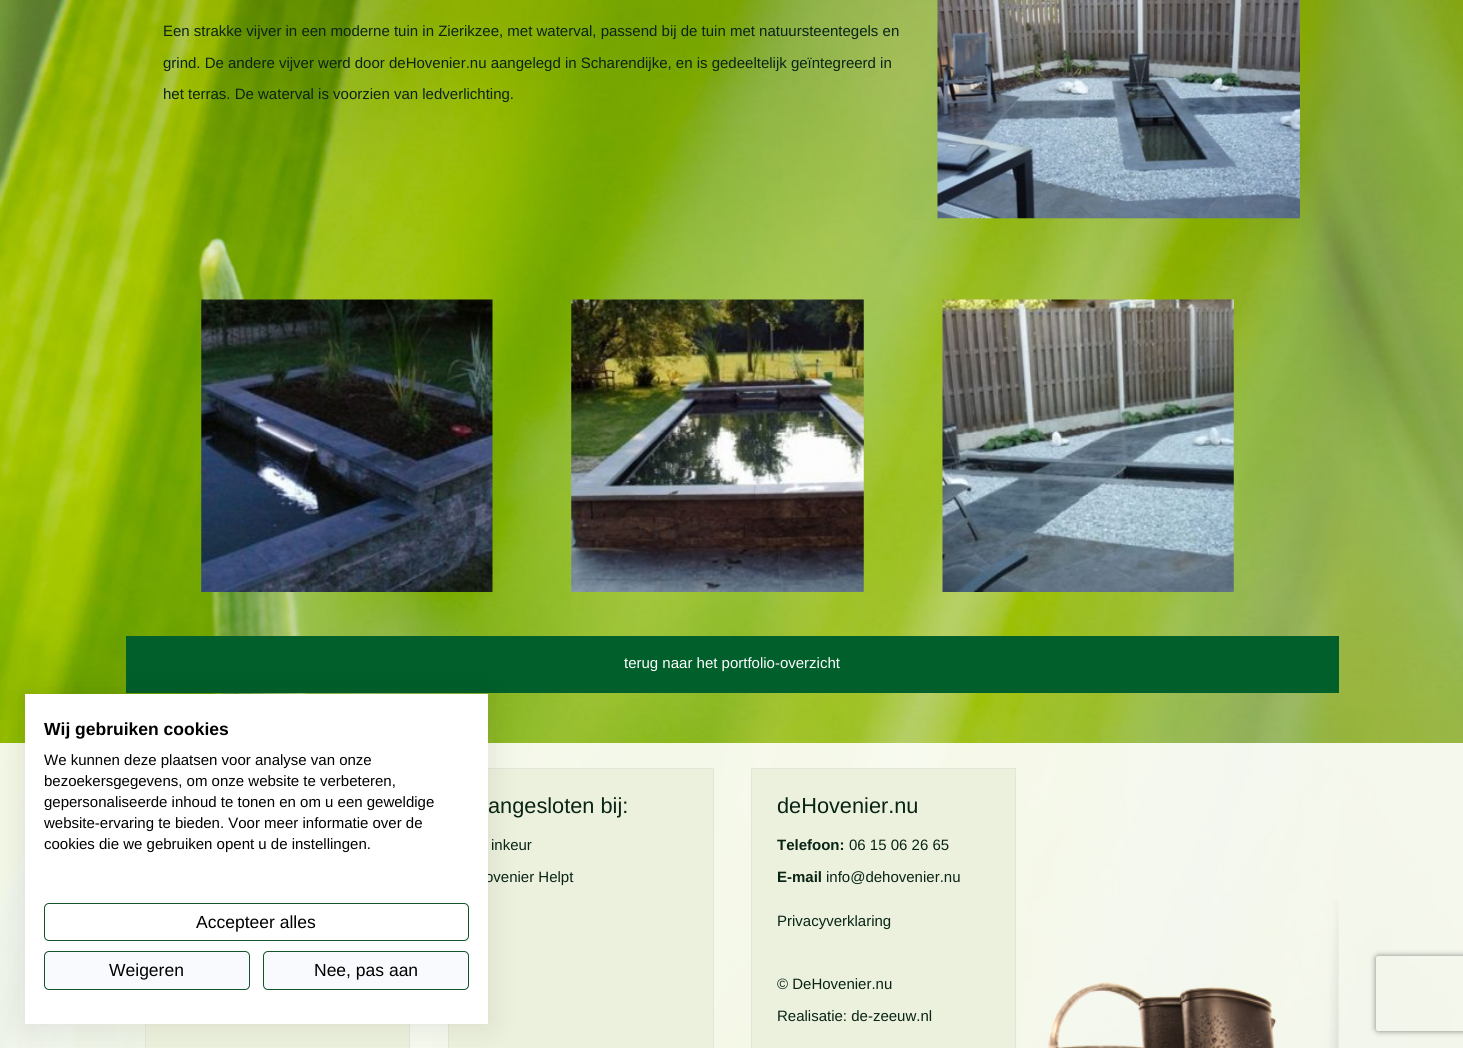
#include <cairo.h>
#include <math.h>
#include <stddef.h>

static cairo_t *ctx;

static void use_color(int r, int g, int b) {
    cairo_set_source_rgb(ctx, r / 255.0, g / 255.0, b / 255.0);
}

static void round_rect(double x, double y, double w, double h, double r) {
    cairo_new_sub_path(ctx);
    cairo_arc(ctx, x + w - r, y + h - r, r, 0, M_PI / 2);
    cairo_arc(ctx, x + r, y + h - r, r, M_PI / 2, M_PI);
    cairo_arc(ctx, x + r, y + r, r, M_PI, 1.5 * M_PI);
    cairo_arc(ctx, x + w - r, y + r, r, 1.5 * M_PI, 2 * M_PI);
    cairo_close_path(ctx);
}

static void shadow(double x, double y, double w, double h, double r, double blur, double alpha) {
    cairo_push_group_with_content(ctx, CAIRO_CONTENT_ALPHA);
    cairo_set_operator(ctx, CAIRO_OPERATOR_SOURCE);
    for (int i = 15; i >= -15 && fmin(w, h) + blur * i / 3 > 0; i -= 2) {
        double e = blur * i / 6;
        cairo_set_source_rgba(ctx, 0, 0, 0, alpha * erfc((i - 1) / 8.5) / 2);
        round_rect(x - e, y - e, w + 2 * e, h + 2 * e, fmax(0, fmin(r + e + blur * .6, fmin(w, h) / 2 + e)));
        cairo_fill(ctx);
    }
    cairo_pattern_t *soft = cairo_pop_group(ctx);
    cairo_mask(ctx, soft);
    cairo_pattern_destroy(soft);
}

static void picture(const char *path, double x, double y, double w, double h) {
    cairo_surface_t *image = cairo_image_surface_create_from_png(path);
    cairo_save(ctx);
    cairo_set_source_surface(ctx, image, x, y);
    cairo_rectangle(ctx, x, y, w, h);
    cairo_fill(ctx);
    cairo_restore(ctx);
    cairo_surface_destroy(image);
}

int main(void) {
    cairo_surface_t *surface = cairo_image_surface_create(CAIRO_FORMAT_RGB24, 1463, 1048);
    ctx = cairo_create(surface);
    cairo_font_options_t *options = cairo_font_options_create();
    cairo_font_options_set_hint_metrics(options, CAIRO_HINT_METRICS_OFF);
    cairo_font_options_set_hint_style(options, CAIRO_HINT_STYLE_NONE);
    cairo_set_font_options(ctx, options);
    cairo_set_miter_limit(ctx, 4);
    use_color(255, 255, 255);
    cairo_paint(ctx);
    picture("img1.png", 0, 0, 1463, 1048);
    cairo_select_font_face(ctx, "Liberation Sans", CAIRO_FONT_SLANT_NORMAL, CAIRO_FONT_WEIGHT_NORMAL);
    cairo_set_font_size(ctx, 15);
    use_color(9, 36, 21);
    cairo_move_to(ctx, 163, 36);
    cairo_show_text(ctx, "Een strakke vijver in een moderne tuin in Zierikzee, met waterval, passend bij de tuin met natuursteentegels en");
    cairo_move_to(ctx, 163, 68);
    cairo_show_text(ctx, "grind. De andere vijver werd door deHovenier.nu aangelegd in Scharendijke, en is gedeeltelijk geïntegreerd in");
    cairo_move_to(ctx, 163, 99);
    cairo_show_text(ctx, "het terras. De waterval is voorzien van ledverlichting.");
    picture("img2.png", 937, 0, 363, 219);
    picture("img3.png", 201, 299, 292, 293);
    picture("img4.png", 571, 299, 293, 293);
    picture("img5.png", 942, 299, 292, 293);
    use_color(0, 95, 43);
    cairo_rectangle(ctx, 126, 636, 1213, 57);
    cairo_fill(ctx);
    use_color(255, 255, 255);
    cairo_move_to(ctx, 624, 668);
    cairo_show_text(ctx, "terug naar het portfolio-overzicht");
    cairo_set_source_rgba(ctx, 1, 1, 1, 0.9);
    cairo_rectangle(ctx, 0, 743, 1463, 305);
    cairo_fill(ctx);
    use_color(236, 241, 221);
    cairo_rectangle(ctx, 146, 1024, 263, 24);
    cairo_fill(ctx);
    cairo_rectangle(ctx, 145.5, 768.5, 264, 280);
    use_color(226, 230, 216);
    cairo_set_line_width(ctx, 1);
    cairo_stroke(ctx);
    use_color(236, 241, 221);
    cairo_rectangle(ctx, 448.5, 768.5, 265, 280);
    cairo_fill_preserve(ctx);
    use_color(226, 230, 216);
    cairo_stroke(ctx);
    use_color(0, 0, 0);
    shadow(25, 694, 463, 330, 0, 15, 0.1);
    use_color(9, 36, 21);
    cairo_move_to(ctx, 485, 882);
    cairo_show_text(ctx, "ovenier Helpt");
    use_color(255, 255, 255);
    cairo_rectangle(ctx, 25, 694, 463, 330);
    cairo_fill(ctx);
    cairo_select_font_face(ctx, "Liberation Sans", CAIRO_FONT_SLANT_NORMAL, CAIRO_FONT_WEIGHT_BOLD);
    cairo_set_font_size(ctx, 17.5);
    use_color(0, 0, 0);
    cairo_move_to(ctx, 44, 735);
    cairo_show_text(ctx, "Wij gebruiken cookies");
    cairo_select_font_face(ctx, "Liberation Sans", CAIRO_FONT_SLANT_NORMAL, CAIRO_FONT_WEIGHT_NORMAL);
    cairo_set_font_size(ctx, 15);
    cairo_move_to(ctx, 44, 765);
    cairo_show_text(ctx, "We kunnen deze plaatsen voor analyse van onze");
    cairo_move_to(ctx, 44, 786);
    cairo_show_text(ctx, "bezoekersgegevens, om onze website te verbeteren,");
    cairo_move_to(ctx, 44, 807);
    cairo_show_text(ctx, "gepersonaliseerde inhoud te tonen en om u een geweldige");
    cairo_move_to(ctx, 44, 828);
    cairo_show_text(ctx, "website-ervaring te bieden. Voor meer informatie over de");
    cairo_move_to(ctx, 44, 849);
    cairo_show_text(ctx, "cookies die we gebruiken opent u de instellingen.");
    round_rect(44.5, 903.5, 424, 37, 4.5);
    use_color(19, 84, 42);
    cairo_stroke(ctx);
    cairo_set_font_size(ctx, 17.5);
    use_color(0, 0, 0);
    cairo_move_to(ctx, 196, 928);
    cairo_show_text(ctx, "Accepteer alles");
    use_color(248, 250, 253);
    round_rect(44.5, 951.5, 205, 38, 4.5);
    cairo_fill_preserve(ctx);
    use_color(19, 84, 42);
    cairo_stroke(ctx);
    use_color(0, 0, 0);
    cairo_move_to(ctx, 109, 976);
    cairo_show_text(ctx, "Weigeren");
    use_color(248, 250, 253);
    round_rect(263.5, 951.5, 205, 38, 4.5);
    cairo_fill_preserve(ctx);
    use_color(19, 84, 42);
    cairo_stroke(ctx);
    use_color(0, 0, 0);
    cairo_move_to(ctx, 314, 976);
    cairo_show_text(ctx, "Nee, pas aan");
    picture("img6.png", 1047, 900, 292, 148);
    cairo_set_font_size(ctx, 21.75);
    use_color(9, 36, 21);
    cairo_move_to(ctx, 488, 813);
    cairo_show_text(ctx, "angesloten bij:");
    cairo_set_font_size(ctx, 15);
    cairo_move_to(ctx, 491, 850);
    cairo_show_text(ctx, "inkeur");
    use_color(236, 241, 221);
    cairo_rectangle(ctx, 751.5, 768.5, 264, 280);
    cairo_fill_preserve(ctx);
    use_color(226, 230, 216);
    cairo_stroke(ctx);
    cairo_set_font_size(ctx, 21.75);
    use_color(9, 36, 21);
    cairo_move_to(ctx, 777, 813);
    cairo_show_text(ctx, "deHovenier.nu");
    cairo_select_font_face(ctx, "Liberation Sans", CAIRO_FONT_SLANT_NORMAL, CAIRO_FONT_WEIGHT_BOLD);
    cairo_set_font_size(ctx, 15);
    cairo_move_to(ctx, 777, 850);
    cairo_show_text(ctx, "Telefoon:");
    cairo_select_font_face(ctx, "Liberation Sans", CAIRO_FONT_SLANT_NORMAL, CAIRO_FONT_WEIGHT_NORMAL);
    cairo_move_to(ctx, 849, 850);
    cairo_show_text(ctx, "06 15 06 26 65");
    cairo_select_font_face(ctx, "Liberation Sans", CAIRO_FONT_SLANT_NORMAL, CAIRO_FONT_WEIGHT_BOLD);
    cairo_move_to(ctx, 777, 882);
    cairo_show_text(ctx, "E-mail");
    cairo_select_font_face(ctx, "Liberation Sans", CAIRO_FONT_SLANT_NORMAL, CAIRO_FONT_WEIGHT_NORMAL);
    cairo_move_to(ctx, 826, 882);
    cairo_show_text(ctx, "info@dehovenier.nu");
    cairo_move_to(ctx, 777, 926);
    cairo_show_text(ctx, "Privacyverklaring");
    cairo_move_to(ctx, 777, 989);
    cairo_show_text(ctx, "© DeHovenier.nu");
    cairo_move_to(ctx, 777, 1021);
    cairo_show_text(ctx, "Realisatie: de-zeeuw.nl");
    cairo_save(ctx);
    cairo_set_fill_rule(ctx, CAIRO_FILL_RULE_EVEN_ODD);
    cairo_new_path(ctx);
    cairo_move_to(ctx, 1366, 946);
    cairo_line_to(ctx, 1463, 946);
    cairo_line_to(ctx, 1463, 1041);
    cairo_line_to(ctx, 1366, 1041);
    cairo_close_path(ctx);
    cairo_move_to(ctx, 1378.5, 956);
    cairo_line_to(ctx, 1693.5, 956);
    cairo_curve_to(ctx, 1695, 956, 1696, 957, 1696, 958.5);
    cairo_line_to(ctx, 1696, 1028.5);
    cairo_curve_to(ctx, 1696, 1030, 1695, 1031, 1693.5, 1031);
    cairo_line_to(ctx, 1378.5, 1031);
    cairo_curve_to(ctx, 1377, 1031, 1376, 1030, 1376, 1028.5);
    cairo_line_to(ctx, 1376, 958.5);
    cairo_curve_to(ctx, 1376, 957, 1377, 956, 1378.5, 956);
    cairo_close_path(ctx);
    cairo_clip(ctx);
    use_color(128, 128, 128);
    shadow(1376, 956, 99, 75, 2.5, 3, 1);
    cairo_restore(ctx);
    cairo_surface_write_to_png(surface, "result.png");
    cairo_font_options_destroy(options);
    cairo_destroy(ctx);
    cairo_surface_destroy(surface);
    return 0;
}
